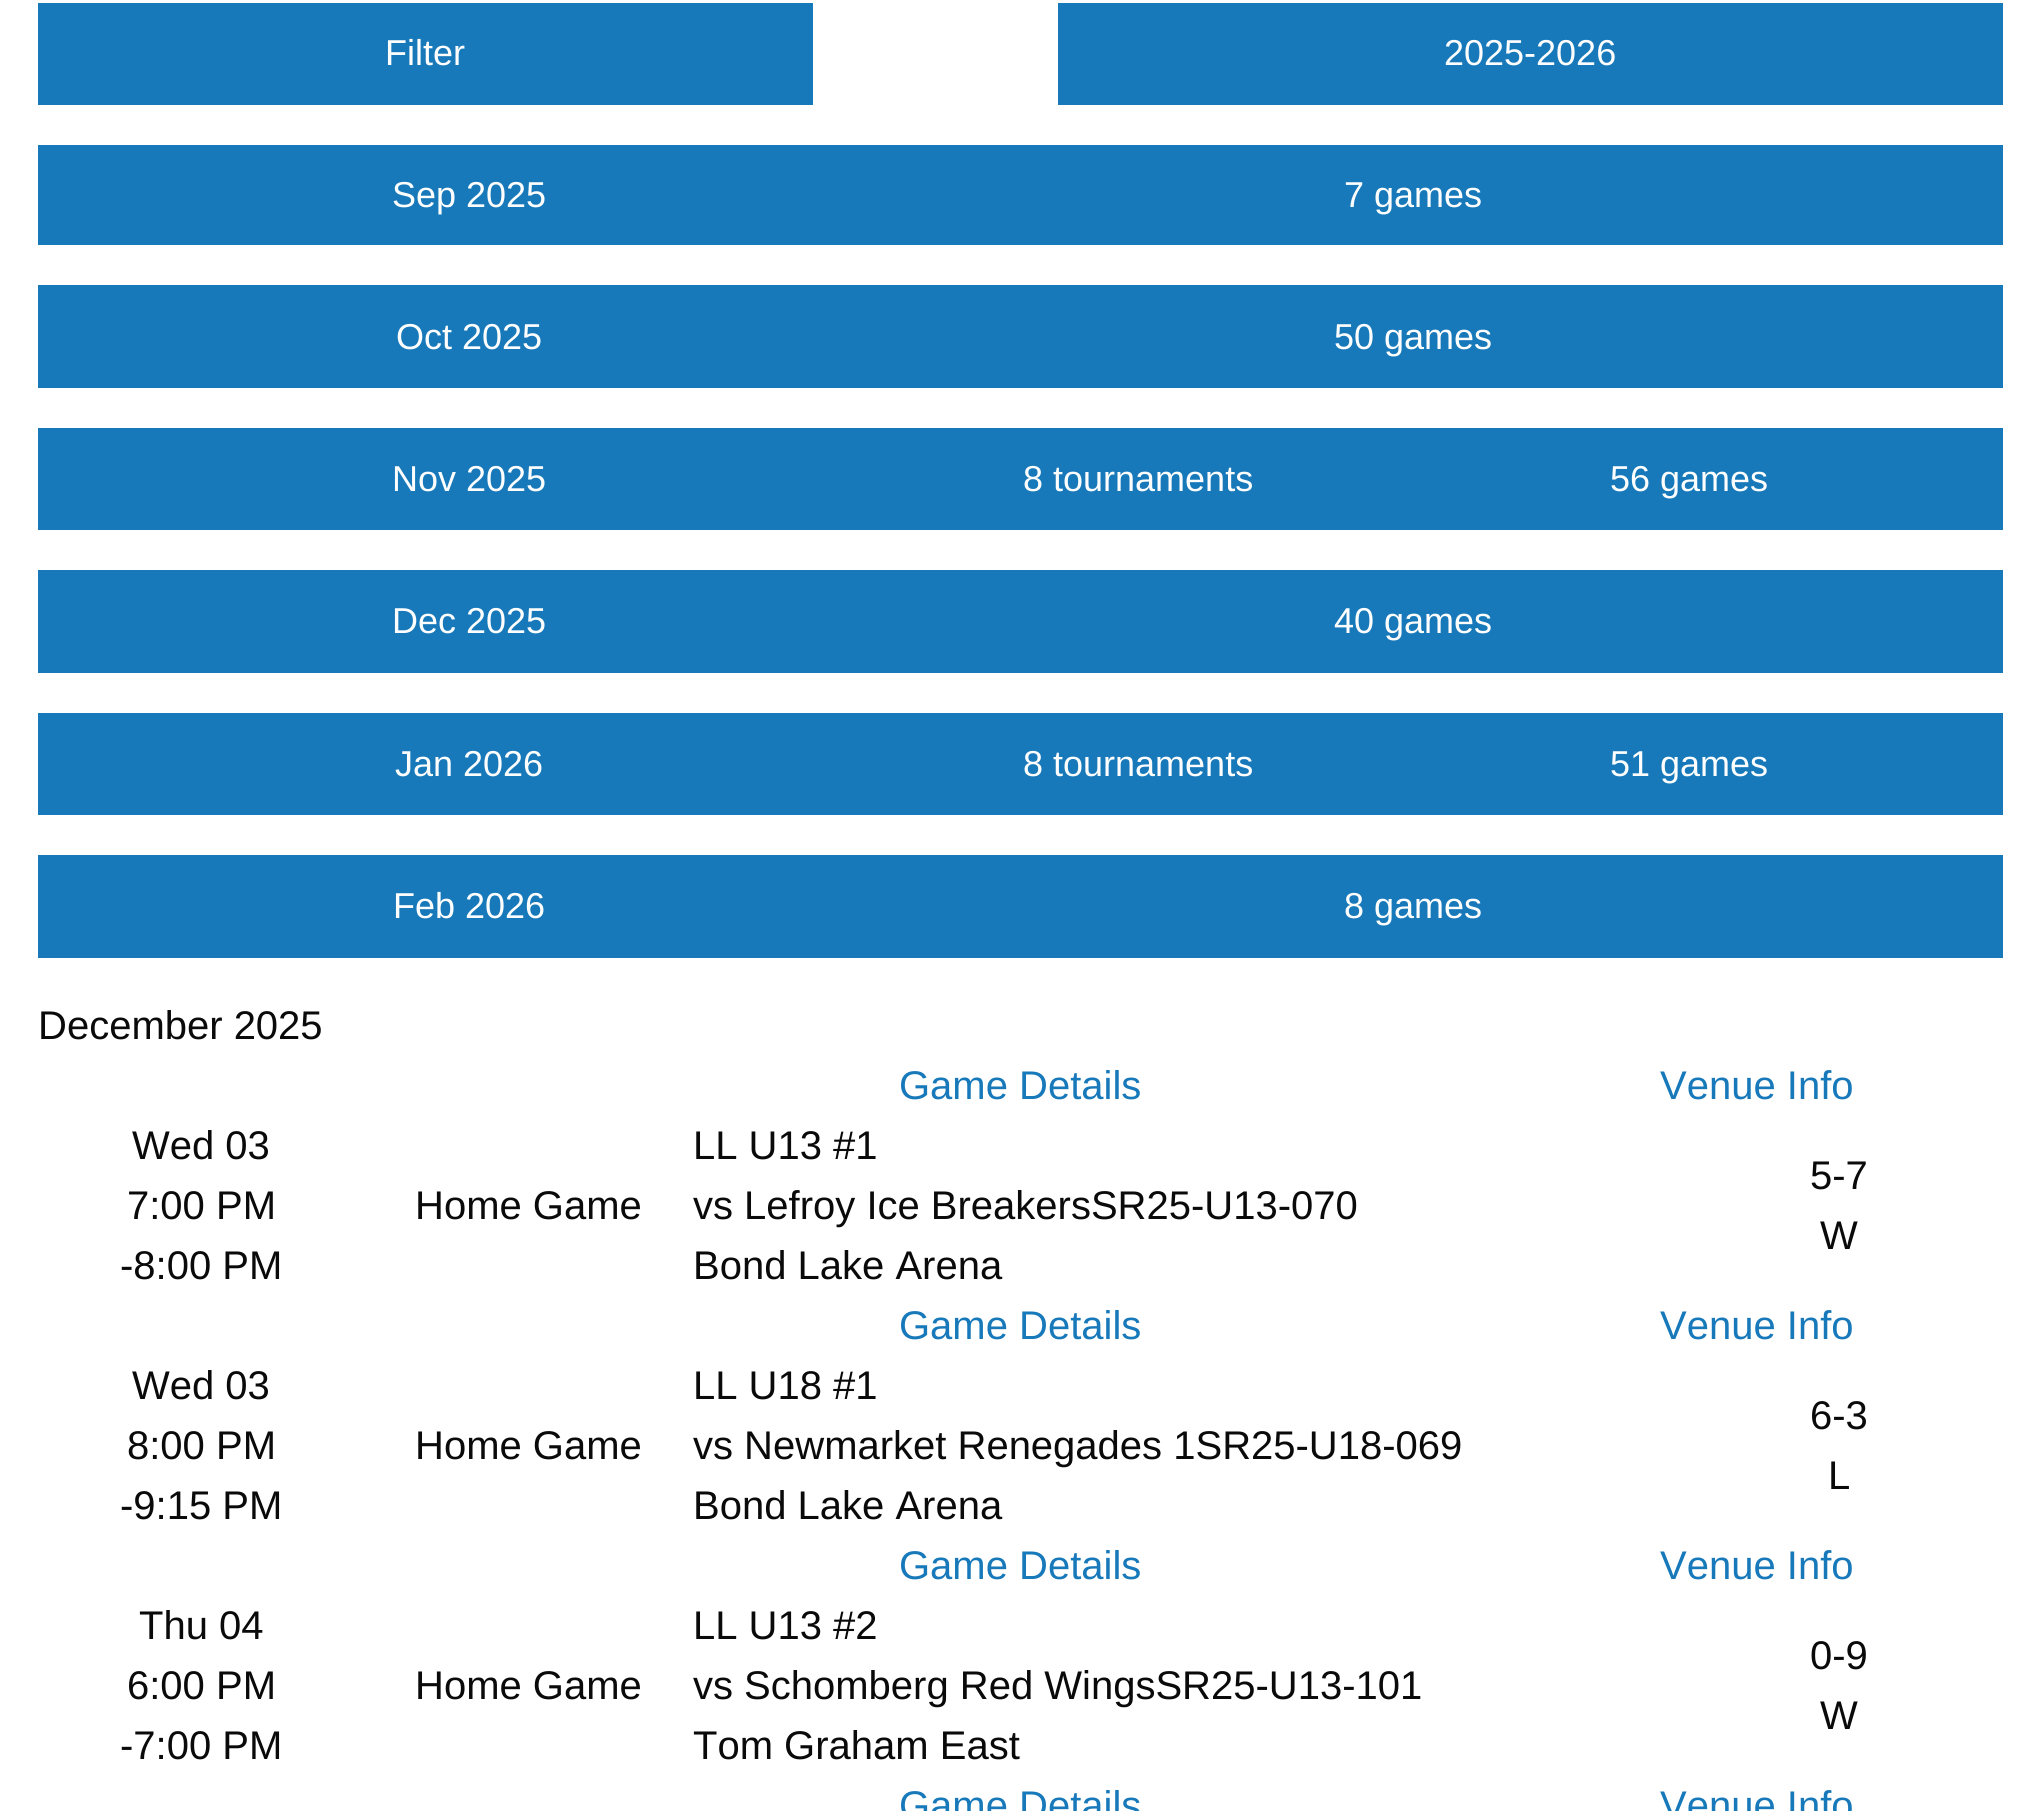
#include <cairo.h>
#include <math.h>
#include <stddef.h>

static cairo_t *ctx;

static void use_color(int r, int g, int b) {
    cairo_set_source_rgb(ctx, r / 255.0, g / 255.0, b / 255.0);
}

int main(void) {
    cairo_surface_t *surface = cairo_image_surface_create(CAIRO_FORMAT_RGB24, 2040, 1811);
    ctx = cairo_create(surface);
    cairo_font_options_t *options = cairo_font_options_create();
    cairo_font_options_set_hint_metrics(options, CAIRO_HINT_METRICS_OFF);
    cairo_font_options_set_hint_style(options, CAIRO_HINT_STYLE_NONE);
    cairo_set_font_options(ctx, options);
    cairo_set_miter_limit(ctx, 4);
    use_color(255, 255, 255);
    cairo_paint(ctx);
    use_color(23, 121, 186);
    cairo_rectangle(ctx, 38, 3, 775, 102);
    cairo_fill(ctx);
    cairo_select_font_face(ctx, "Liberation Sans", CAIRO_FONT_SLANT_NORMAL, CAIRO_FONT_WEIGHT_NORMAL);
    cairo_set_font_size(ctx, 36);
    use_color(254, 254, 254);
    cairo_move_to(ctx, 385, 65);
    cairo_show_text(ctx, "Filter");
    use_color(23, 121, 186);
    cairo_rectangle(ctx, 1058, 3, 945, 102);
    cairo_fill(ctx);
    use_color(254, 254, 254);
    cairo_move_to(ctx, 1444, 65);
    cairo_show_text(ctx, "2025-2026");
    use_color(23, 121, 186);
    cairo_rectangle(ctx, 38, 145, 1965, 100);
    cairo_fill(ctx);
    use_color(254, 254, 254);
    cairo_move_to(ctx, 392, 207);
    cairo_show_text(ctx, "Sep 2025");
    cairo_move_to(ctx, 1344, 207);
    cairo_show_text(ctx, "7 games");
    use_color(23, 121, 186);
    cairo_rectangle(ctx, 38, 285, 1965, 103);
    cairo_fill(ctx);
    use_color(254, 254, 254);
    cairo_move_to(ctx, 396, 349);
    cairo_show_text(ctx, "Oct 2025");
    cairo_move_to(ctx, 1334, 349);
    cairo_show_text(ctx, "50 games");
    use_color(23, 121, 186);
    cairo_rectangle(ctx, 38, 428, 1965, 102);
    cairo_fill(ctx);
    use_color(254, 254, 254);
    cairo_move_to(ctx, 392, 491);
    cairo_show_text(ctx, "Nov 2025");
    cairo_move_to(ctx, 1023, 491);
    cairo_show_text(ctx, "8 tournaments");
    cairo_move_to(ctx, 1610, 491);
    cairo_show_text(ctx, "56 games");
    use_color(23, 121, 186);
    cairo_rectangle(ctx, 38, 570, 1965, 103);
    cairo_fill(ctx);
    use_color(254, 254, 254);
    cairo_move_to(ctx, 392, 633);
    cairo_show_text(ctx, "Dec 2025");
    cairo_move_to(ctx, 1334, 633);
    cairo_show_text(ctx, "40 games");
    use_color(23, 121, 186);
    cairo_rectangle(ctx, 38, 713, 1965, 102);
    cairo_fill(ctx);
    use_color(254, 254, 254);
    cairo_move_to(ctx, 395, 776);
    cairo_show_text(ctx, "Jan 2026");
    cairo_move_to(ctx, 1023, 776);
    cairo_show_text(ctx, "8 tournaments");
    cairo_move_to(ctx, 1610, 776);
    cairo_show_text(ctx, "51 games");
    use_color(23, 121, 186);
    cairo_rectangle(ctx, 38, 855, 1965, 103);
    cairo_fill(ctx);
    use_color(254, 254, 254);
    cairo_move_to(ctx, 393, 918);
    cairo_show_text(ctx, "Feb 2026");
    cairo_move_to(ctx, 1344, 918);
    cairo_show_text(ctx, "8 games");
    cairo_set_font_size(ctx, 40);
    use_color(10, 10, 10);
    cairo_move_to(ctx, 38, 1039);
    cairo_show_text(ctx, "December 2025");
    use_color(23, 121, 186);
    cairo_move_to(ctx, 899, 1099);
    cairo_show_text(ctx, "Game Details");
    cairo_move_to(ctx, 1660, 1099);
    cairo_show_text(ctx, "Venue Info");
    use_color(10, 10, 10);
    cairo_move_to(ctx, 132, 1159);
    cairo_show_text(ctx, "Wed 03");
    cairo_move_to(ctx, 127, 1219);
    cairo_show_text(ctx, "7:00 PM");
    cairo_move_to(ctx, 120, 1279);
    cairo_show_text(ctx, "-8:00 PM");
    cairo_move_to(ctx, 415, 1219);
    cairo_show_text(ctx, "Home Game");
    cairo_move_to(ctx, 693, 1159);
    cairo_show_text(ctx, "LL U13 #1");
    cairo_move_to(ctx, 693, 1219);
    cairo_show_text(ctx, "vs Lefroy Ice BreakersSR25-U13-070");
    cairo_move_to(ctx, 693, 1279);
    cairo_show_text(ctx, "Bond Lake Arena");
    cairo_move_to(ctx, 1810, 1189);
    cairo_show_text(ctx, "5-7");
    cairo_move_to(ctx, 1820, 1249);
    cairo_show_text(ctx, "W");
    use_color(23, 121, 186);
    cairo_move_to(ctx, 899, 1339);
    cairo_show_text(ctx, "Game Details");
    cairo_move_to(ctx, 1660, 1339);
    cairo_show_text(ctx, "Venue Info");
    use_color(10, 10, 10);
    cairo_move_to(ctx, 132, 1399);
    cairo_show_text(ctx, "Wed 03");
    cairo_move_to(ctx, 127, 1459);
    cairo_show_text(ctx, "8:00 PM");
    cairo_move_to(ctx, 120, 1519);
    cairo_show_text(ctx, "-9:15 PM");
    cairo_move_to(ctx, 415, 1459);
    cairo_show_text(ctx, "Home Game");
    cairo_move_to(ctx, 693, 1399);
    cairo_show_text(ctx, "LL U18 #1");
    cairo_move_to(ctx, 693, 1459);
    cairo_show_text(ctx, "vs Newmarket Renegades 1SR25-U18-069");
    cairo_move_to(ctx, 693, 1519);
    cairo_show_text(ctx, "Bond Lake Arena");
    cairo_move_to(ctx, 1810, 1429);
    cairo_show_text(ctx, "6-3");
    cairo_move_to(ctx, 1828, 1489);
    cairo_show_text(ctx, "L");
    use_color(23, 121, 186);
    cairo_move_to(ctx, 899, 1579);
    cairo_show_text(ctx, "Game Details");
    cairo_move_to(ctx, 1660, 1579);
    cairo_show_text(ctx, "Venue Info");
    use_color(10, 10, 10);
    cairo_move_to(ctx, 139, 1639);
    cairo_show_text(ctx, "Thu 04");
    cairo_move_to(ctx, 127, 1699);
    cairo_show_text(ctx, "6:00 PM");
    cairo_move_to(ctx, 120, 1759);
    cairo_show_text(ctx, "-7:00 PM");
    cairo_move_to(ctx, 415, 1699);
    cairo_show_text(ctx, "Home Game");
    cairo_move_to(ctx, 693, 1639);
    cairo_show_text(ctx, "LL U13 #2");
    cairo_move_to(ctx, 693, 1699);
    cairo_show_text(ctx, "vs Schomberg Red WingsSR25-U13-101");
    cairo_move_to(ctx, 693, 1759);
    cairo_show_text(ctx, "Tom Graham East");
    cairo_move_to(ctx, 1810, 1669);
    cairo_show_text(ctx, "0-9");
    cairo_move_to(ctx, 1820, 1729);
    cairo_show_text(ctx, "W");
    use_color(23, 121, 186);
    cairo_move_to(ctx, 899, 1819);
    cairo_show_text(ctx, "Game Details");
    cairo_move_to(ctx, 1660, 1819);
    cairo_show_text(ctx, "Venue Info");
    cairo_surface_write_to_png(surface, "result.png");
    cairo_font_options_destroy(options);
    cairo_destroy(ctx);
    cairo_surface_destroy(surface);
    return 0;
}
